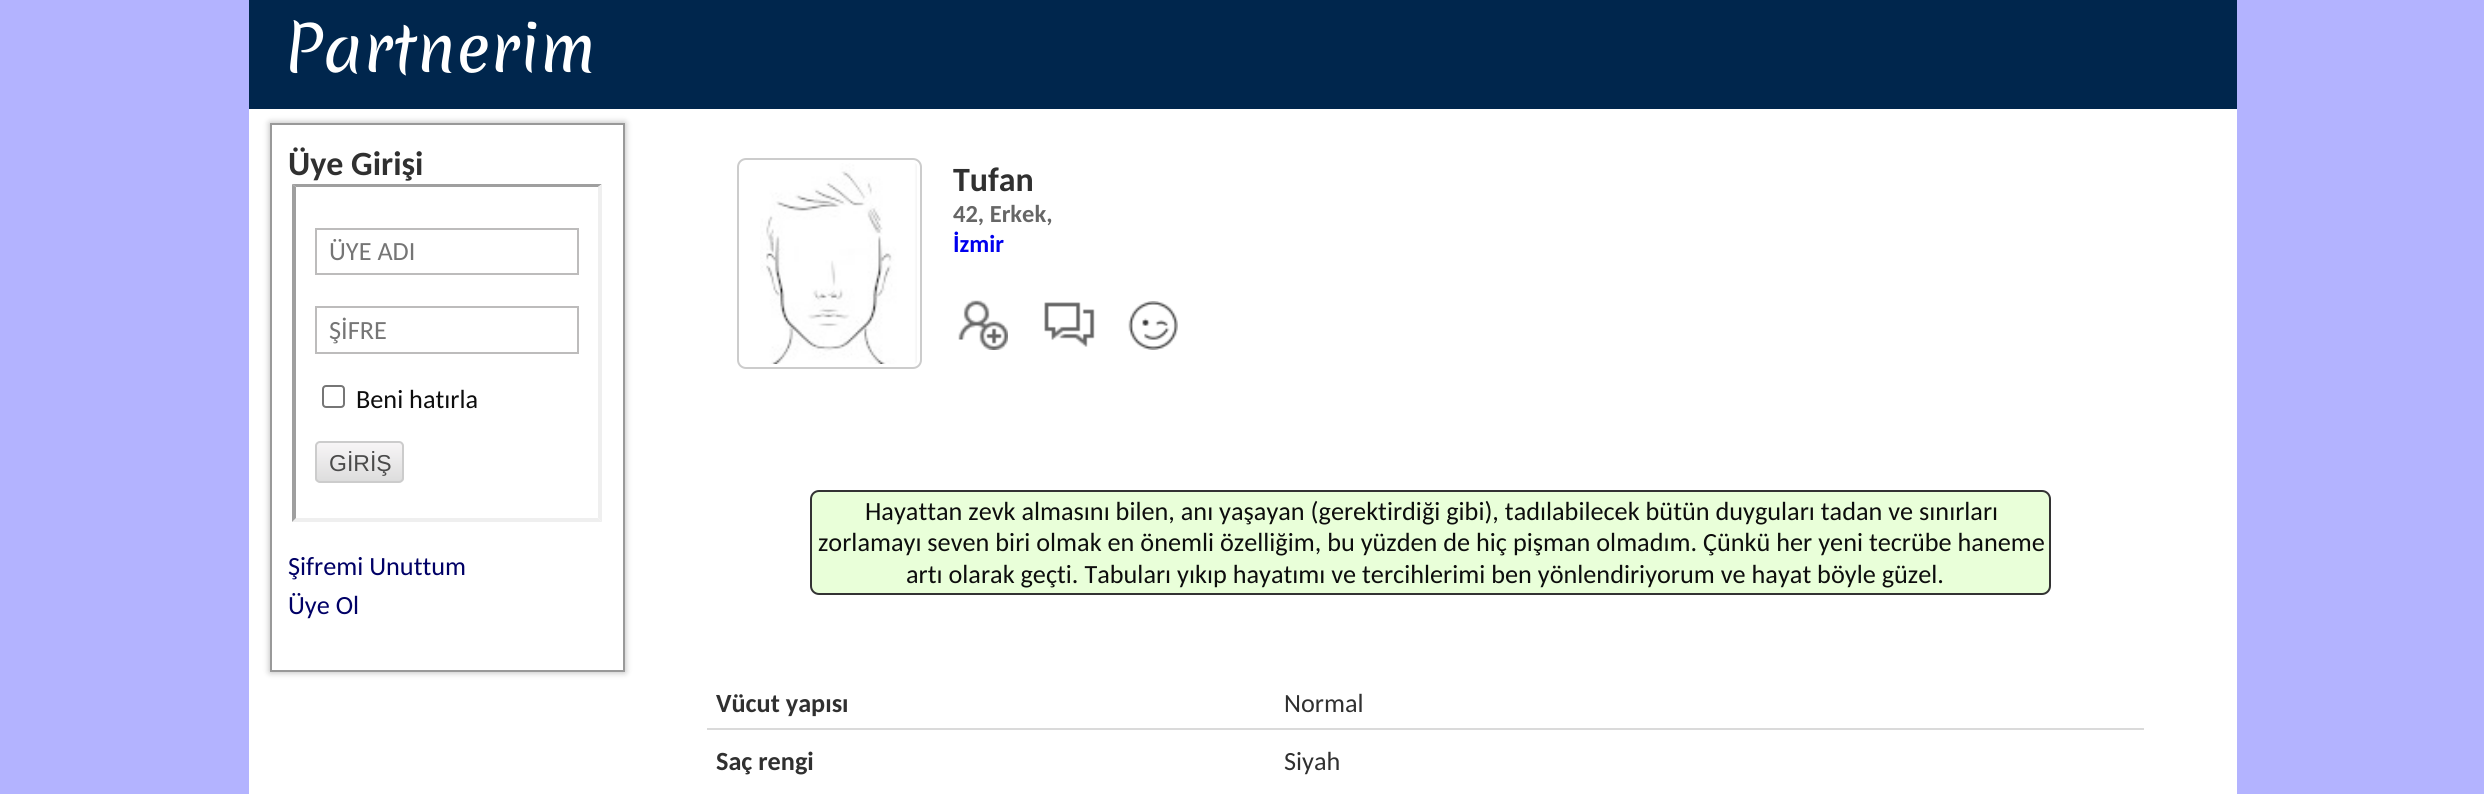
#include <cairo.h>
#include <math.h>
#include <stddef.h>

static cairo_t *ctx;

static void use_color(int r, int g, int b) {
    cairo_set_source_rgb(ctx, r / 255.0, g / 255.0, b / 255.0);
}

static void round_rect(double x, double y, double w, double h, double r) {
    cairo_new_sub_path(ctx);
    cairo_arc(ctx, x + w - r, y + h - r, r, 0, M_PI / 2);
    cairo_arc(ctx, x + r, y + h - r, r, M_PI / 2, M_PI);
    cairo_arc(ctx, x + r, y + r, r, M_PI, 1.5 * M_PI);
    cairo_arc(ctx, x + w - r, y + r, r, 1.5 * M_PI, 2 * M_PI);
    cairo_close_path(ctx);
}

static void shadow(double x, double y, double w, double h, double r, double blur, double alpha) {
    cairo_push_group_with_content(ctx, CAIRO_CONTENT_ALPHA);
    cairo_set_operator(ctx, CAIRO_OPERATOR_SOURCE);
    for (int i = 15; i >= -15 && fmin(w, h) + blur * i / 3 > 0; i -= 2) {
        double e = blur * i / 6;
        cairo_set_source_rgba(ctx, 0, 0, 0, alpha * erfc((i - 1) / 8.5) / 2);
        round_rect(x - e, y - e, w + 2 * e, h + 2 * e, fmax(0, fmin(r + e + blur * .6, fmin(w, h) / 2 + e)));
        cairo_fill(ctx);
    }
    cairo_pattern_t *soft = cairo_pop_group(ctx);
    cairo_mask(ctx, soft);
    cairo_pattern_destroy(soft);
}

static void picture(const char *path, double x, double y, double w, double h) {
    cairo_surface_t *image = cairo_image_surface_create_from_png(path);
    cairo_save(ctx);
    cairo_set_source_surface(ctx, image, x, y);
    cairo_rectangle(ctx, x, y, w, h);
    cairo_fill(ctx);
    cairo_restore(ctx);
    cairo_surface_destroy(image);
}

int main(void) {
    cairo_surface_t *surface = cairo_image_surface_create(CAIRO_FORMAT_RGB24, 2484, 794);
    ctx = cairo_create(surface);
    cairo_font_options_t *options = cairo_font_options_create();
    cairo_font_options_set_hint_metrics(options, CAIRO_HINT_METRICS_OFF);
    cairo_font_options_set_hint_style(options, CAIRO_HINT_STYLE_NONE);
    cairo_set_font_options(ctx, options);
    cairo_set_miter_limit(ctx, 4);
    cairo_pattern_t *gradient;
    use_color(179, 179, 255);
    cairo_paint(ctx);
    use_color(255, 255, 255);
    cairo_rectangle(ctx, 249, 109, 1988, 685);
    cairo_fill(ctx);
    use_color(0, 38, 77);
    cairo_rectangle(ctx, 249, 0, 1988, 109);
    cairo_fill(ctx);
    cairo_select_font_face(ctx, "Merienda", CAIRO_FONT_SLANT_NORMAL, CAIRO_FONT_WEIGHT_NORMAL);
    cairo_set_font_size(ctx, 63);
    use_color(255, 255, 255);
    cairo_move_to(ctx, 284, 72);
    cairo_show_text(ctx, "Partnerim");
    cairo_save(ctx);
    cairo_set_fill_rule(ctx, CAIRO_FILL_RULE_EVEN_ODD);
    cairo_new_path(ctx);
    cairo_move_to(ctx, 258, 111);
    cairo_line_to(ctx, 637, 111);
    cairo_line_to(ctx, 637, 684);
    cairo_line_to(ctx, 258, 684);
    cairo_close_path(ctx);
    cairo_move_to(ctx, 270, 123);
    cairo_line_to(ctx, 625, 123);
    cairo_line_to(ctx, 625, 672);
    cairo_line_to(ctx, 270, 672);
    cairo_close_path(ctx);
    cairo_clip(ctx);
    use_color(0, 0, 0);
    shadow(270, 123, 355, 549, 0, 3.5, 0.3);
    cairo_restore(ctx);
    cairo_rectangle(ctx, 271, 124, 353, 547);
    use_color(153, 153, 153);
    cairo_stroke(ctx);
    cairo_select_font_face(ctx, "Carlito", CAIRO_FONT_SLANT_NORMAL, CAIRO_FONT_WEIGHT_BOLD);
    cairo_set_font_size(ctx, 34);
    use_color(48, 48, 48);
    cairo_move_to(ctx, 288, 175);
    cairo_show_text(ctx, "Üye Girişi");
    use_color(159, 159, 159);
    cairo_new_path(ctx);
    cairo_move_to(ctx, 292, 184);
    cairo_line_to(ctx, 602, 184);
    cairo_line_to(ctx, 598, 187);
    cairo_line_to(ctx, 296, 187);
    cairo_close_path(ctx);
    cairo_fill(ctx);
    use_color(239, 239, 239);
    cairo_new_path(ctx);
    cairo_move_to(ctx, 602, 184);
    cairo_line_to(ctx, 602, 522);
    cairo_line_to(ctx, 598, 518);
    cairo_line_to(ctx, 598, 187);
    cairo_close_path(ctx);
    cairo_fill(ctx);
    cairo_new_path(ctx);
    cairo_move_to(ctx, 602, 522);
    cairo_line_to(ctx, 292, 522);
    cairo_line_to(ctx, 296, 518);
    cairo_line_to(ctx, 598, 518);
    cairo_close_path(ctx);
    cairo_fill(ctx);
    use_color(159, 159, 159);
    cairo_new_path(ctx);
    cairo_move_to(ctx, 292, 522);
    cairo_line_to(ctx, 292, 184);
    cairo_line_to(ctx, 296, 187);
    cairo_line_to(ctx, 296, 518);
    cairo_close_path(ctx);
    cairo_fill(ctx);
    cairo_rectangle(ctx, 316, 229, 262, 45);
    use_color(189, 188, 188);
    cairo_stroke(ctx);
    cairo_select_font_face(ctx, "Carlito", CAIRO_FONT_SLANT_NORMAL, CAIRO_FONT_WEIGHT_NORMAL);
    cairo_set_font_size(ctx, 26.25);
    use_color(117, 117, 117);
    cairo_move_to(ctx, 329, 260);
    cairo_show_text(ctx, "ÜYE ADI");
    cairo_rectangle(ctx, 316, 307, 262, 46);
    use_color(189, 188, 188);
    cairo_stroke(ctx);
    use_color(117, 117, 117);
    cairo_move_to(ctx, 329, 339);
    cairo_show_text(ctx, "ŞİFRE");
    round_rect(323, 386, 21, 21, 3);
    use_color(118, 118, 118);
    cairo_stroke(ctx);
    use_color(13, 13, 13);
    cairo_move_to(ctx, 356, 408);
    cairo_show_text(ctx, "Beni hatırla");
    cairo_save(ctx);
    round_rect(315, 441, 89, 42, 5);
    cairo_clip(ctx);
    gradient = cairo_pattern_create_linear(360, 443, 360, 481);
    cairo_pattern_add_color_stop_rgba(gradient, 0, 0.969, 0.961, 0.965, 1);
    cairo_pattern_add_color_stop_rgba(gradient, 1, 0.867, 0.867, 0.867, 1);
    cairo_set_source(ctx, gradient);
    cairo_pattern_destroy(gradient);
    cairo_rectangle(ctx, 315, 443, 89, 38);
    cairo_fill(ctx);
    cairo_restore(ctx);
    round_rect(316, 442, 87, 40, 4);
    use_color(204, 204, 204);
    cairo_stroke(ctx);
    cairo_select_font_face(ctx, "Liberation Sans", CAIRO_FONT_SLANT_NORMAL, CAIRO_FONT_WEIGHT_NORMAL);
    cairo_set_font_size(ctx, 23);
    use_color(74, 74, 74);
    cairo_move_to(ctx, 329, 471);
    cairo_show_text(ctx, "GİRİŞ");
    cairo_select_font_face(ctx, "Carlito", CAIRO_FONT_SLANT_NORMAL, CAIRO_FONT_WEIGHT_NORMAL);
    cairo_set_font_size(ctx, 26.25);
    use_color(0, 0, 102);
    cairo_move_to(ctx, 288, 575);
    cairo_show_text(ctx, "Şifremi Unuttum");
    cairo_move_to(ctx, 288, 614);
    cairo_show_text(ctx, "Üye Ol");
    round_rect(738, 159, 183, 209, 8);
    use_color(204, 204, 204);
    cairo_stroke(ctx);
    picture("img1.png", 760, 163, 157, 201);
    cairo_select_font_face(ctx, "Carlito", CAIRO_FONT_SLANT_NORMAL, CAIRO_FONT_WEIGHT_BOLD);
    cairo_set_font_size(ctx, 34);
    use_color(48, 48, 48);
    cairo_move_to(ctx, 953, 191);
    cairo_show_text(ctx, "Tufan");
    cairo_set_font_size(ctx, 24.5);
    use_color(102, 102, 102);
    cairo_move_to(ctx, 953, 222);
    cairo_show_text(ctx, "42, Erkek,");
    use_color(0, 0, 238);
    cairo_move_to(ctx, 953, 252);
    cairo_show_text(ctx, "İzmir");
    picture("img2.png", 958, 300, 50, 50);
    picture("img3.png", 1044, 302, 51, 45);
    picture("img4.png", 1128, 301, 50, 49);
    use_color(233, 255, 217);
    round_rect(811, 491, 1239, 103, 8);
    cairo_fill_preserve(ctx);
    use_color(51, 51, 51);
    cairo_stroke(ctx);
    cairo_select_font_face(ctx, "Carlito", CAIRO_FONT_SLANT_NORMAL, CAIRO_FONT_WEIGHT_NORMAL);
    cairo_set_font_size(ctx, 26.25);
    use_color(13, 13, 13);
    cairo_move_to(ctx, 865, 520);
    cairo_show_text(ctx, "Hayattan zevk almasını bilen, anı yaşayan (gerektirdiği gibi), tadılabilecek bütün duyguları tadan ve sınırları");
    cairo_move_to(ctx, 818, 551);
    cairo_show_text(ctx, "zorlamayı seven biri olmak en önemli özelliğim, bu yüzden de hiç pişman olmadım. Çünkü her yeni tecrübe haneme");
    cairo_move_to(ctx, 906, 583);
    cairo_show_text(ctx, "artı olarak geçti. Tabuları yıkıp hayatımı ve tercihlerimi ben yönlendiriyorum ve hayat böyle güzel.");
    use_color(218, 218, 218);
    cairo_rectangle(ctx, 707, 728, 1437, 2);
    cairo_fill(ctx);
    cairo_select_font_face(ctx, "Carlito", CAIRO_FONT_SLANT_NORMAL, CAIRO_FONT_WEIGHT_BOLD);
    use_color(48, 48, 48);
    cairo_move_to(ctx, 716, 712);
    cairo_show_text(ctx, "Vücut yapısı");
    cairo_select_font_face(ctx, "Carlito", CAIRO_FONT_SLANT_NORMAL, CAIRO_FONT_WEIGHT_NORMAL);
    cairo_move_to(ctx, 1284, 712);
    cairo_show_text(ctx, "Normal");
    cairo_select_font_face(ctx, "Carlito", CAIRO_FONT_SLANT_NORMAL, CAIRO_FONT_WEIGHT_BOLD);
    cairo_move_to(ctx, 716, 770);
    cairo_show_text(ctx, "Saç rengi");
    cairo_select_font_face(ctx, "Carlito", CAIRO_FONT_SLANT_NORMAL, CAIRO_FONT_WEIGHT_NORMAL);
    cairo_move_to(ctx, 1284, 770);
    cairo_show_text(ctx, "Siyah");
    cairo_surface_write_to_png(surface, "result.png");
    cairo_font_options_destroy(options);
    cairo_destroy(ctx);
    cairo_surface_destroy(surface);
    return 0;
}
